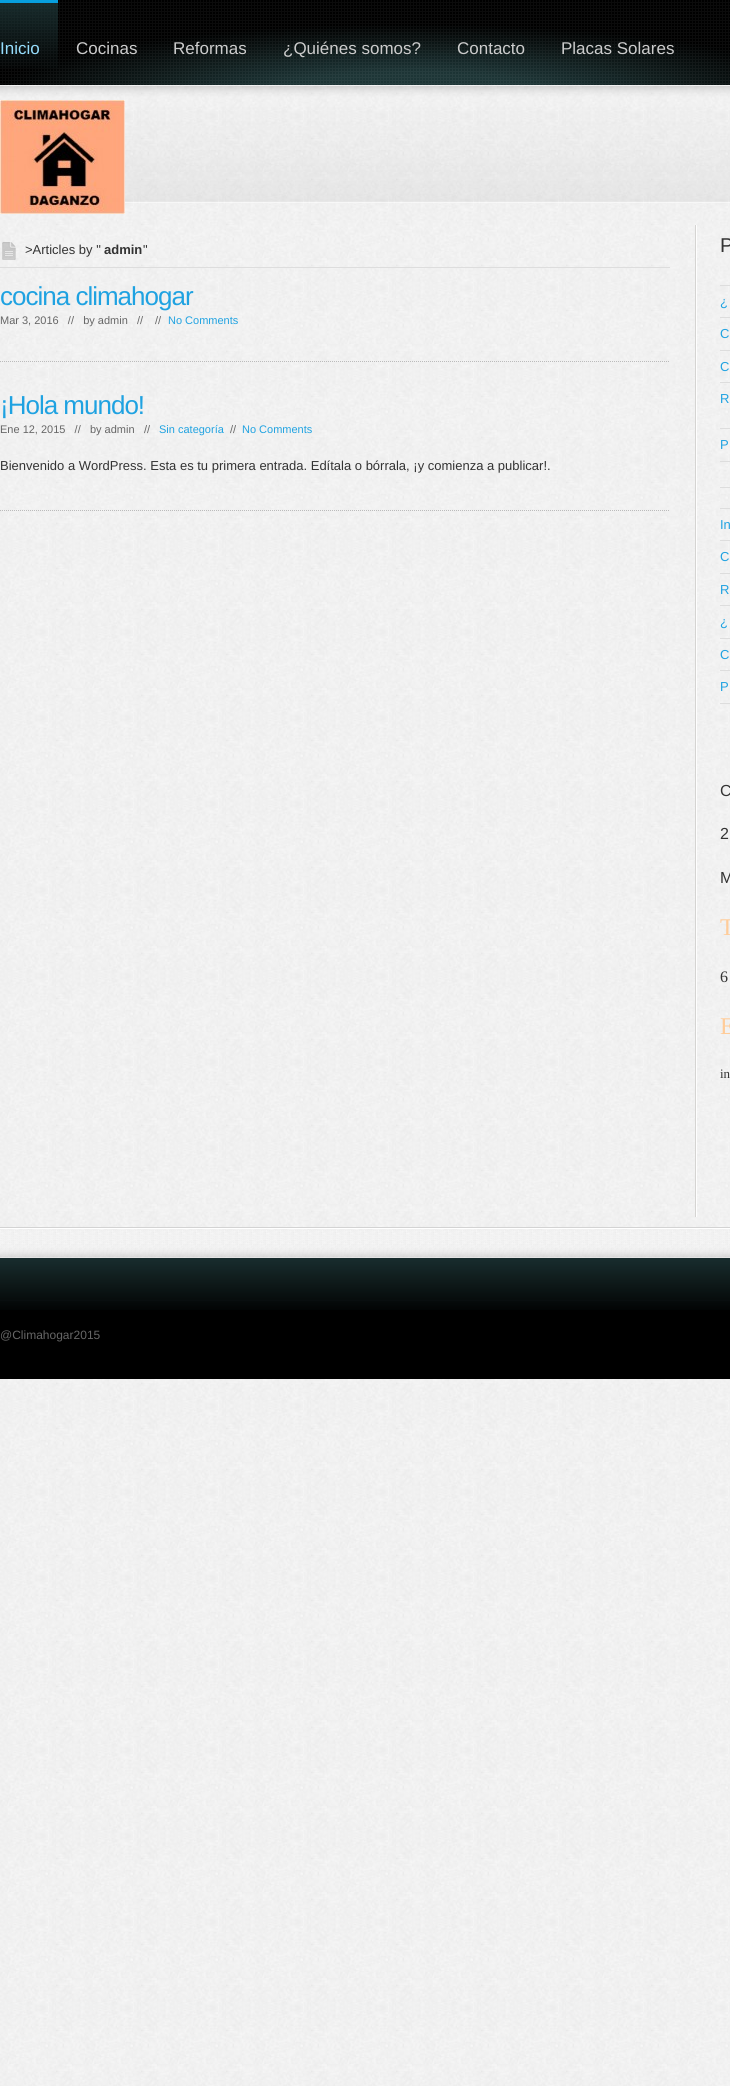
#include <cairo.h>
#include <math.h>
#include <stddef.h>

static cairo_t *ctx;

static void use_color(int r, int g, int b) {
    cairo_set_source_rgb(ctx, r / 255.0, g / 255.0, b / 255.0);
}

static void spaced_text(double x, double y, const char *s, double letter, double word) {
    cairo_move_to(ctx, x, y);
    while (*s) {
        char ch[5] = {0};
        int n = 0;
        do ch[n++] = *s++; while ((*s & 0xC0) == 0x80);
        cairo_show_text(ctx, ch);
        cairo_rel_move_to(ctx, letter + word * (*ch == ' '), 0);
    }
}

static void picture(const char *path, double x, double y, double w, double h) {
    cairo_surface_t *image = cairo_image_surface_create_from_png(path);
    cairo_save(ctx);
    cairo_set_source_surface(ctx, image, x, y);
    cairo_rectangle(ctx, x, y, w, h);
    cairo_fill(ctx);
    cairo_restore(ctx);
    cairo_surface_destroy(image);
}

int main(void) {
    cairo_surface_t *surface = cairo_image_surface_create(CAIRO_FORMAT_RGB24, 730, 2086);
    ctx = cairo_create(surface);
    cairo_font_options_t *options = cairo_font_options_create();
    cairo_font_options_set_hint_metrics(options, CAIRO_HINT_METRICS_OFF);
    cairo_font_options_set_hint_style(options, CAIRO_HINT_STYLE_NONE);
    cairo_set_font_options(ctx, options);
    cairo_set_miter_limit(ctx, 4);
    use_color(255, 255, 255);
    cairo_paint(ctx);
    picture("img1.png", 0, 85, 730, 2001);
    picture("img2.png", 0, 86, 730, 117);
    picture("img3.png", 0, 0, 730, 85);
    picture("img4.png", 0, 0, 58, 68);
    cairo_select_font_face(ctx, "Liberation Sans", CAIRO_FONT_SLANT_NORMAL, CAIRO_FONT_WEIGHT_NORMAL);
    cairo_set_font_size(ctx, 17);
    use_color(150, 221, 252);
    cairo_move_to(ctx, 0, 54);
    cairo_show_text(ctx, "Inicio");
    use_color(204, 204, 204);
    cairo_move_to(ctx, 76, 54);
    cairo_show_text(ctx, "Cocinas");
    cairo_move_to(ctx, 173, 54);
    cairo_show_text(ctx, "Reformas");
    cairo_move_to(ctx, 283, 54);
    cairo_show_text(ctx, "¿Quiénes somos?");
    cairo_move_to(ctx, 457, 54);
    cairo_show_text(ctx, "Contacto");
    cairo_move_to(ctx, 561, 54);
    cairo_show_text(ctx, "Placas Solares");
    picture("img5.png", 0, 100, 125, 114);
    picture("img6.png", 695, 225, 2, 992);
    picture("img7.png", 2, 242, 14, 18);
    use_color(221, 221, 221);
    cairo_rectangle(ctx, 0, 267, 670, 1);
    cairo_fill(ctx);
    cairo_set_font_size(ctx, 13);
    use_color(51, 51, 51);
    cairo_move_to(ctx, 25, 254);
    cairo_show_text(ctx, ">Articles by \"");
    cairo_select_font_face(ctx, "Liberation Sans", CAIRO_FONT_SLANT_NORMAL, CAIRO_FONT_WEIGHT_BOLD);
    cairo_move_to(ctx, 104, 254);
    cairo_show_text(ctx, "admin");
    cairo_select_font_face(ctx, "Liberation Sans", CAIRO_FONT_SLANT_NORMAL, CAIRO_FONT_WEIGHT_NORMAL);
    cairo_move_to(ctx, 143, 254);
    cairo_show_text(ctx, "\"");
    cairo_new_path(ctx);
    cairo_move_to(ctx, 0, 361.5);
    cairo_line_to(ctx, 670, 361.5);
    use_color(187, 187, 187);
    cairo_set_line_width(ctx, 1);
    cairo_set_dash(ctx, (double[]){1, 1}, 2, 0);
    cairo_stroke(ctx);
    cairo_set_font_size(ctx, 26);
    use_color(31, 162, 225);
    spaced_text(0, 305, "cocina climahogar", -1, 0);
    cairo_set_font_size(ctx, 11);
    use_color(102, 102, 102);
    cairo_move_to(ctx, 0, 324);
    cairo_show_text(ctx, "Mar 3, 2016   //   by admin");
    cairo_move_to(ctx, 137, 324);
    cairo_show_text(ctx, "//");
    cairo_move_to(ctx, 155, 324);
    cairo_show_text(ctx, "//");
    use_color(31, 162, 225);
    cairo_move_to(ctx, 168, 324);
    cairo_show_text(ctx, "No Comments");
    cairo_new_path(ctx);
    cairo_move_to(ctx, 0, 510.5);
    cairo_line_to(ctx, 670, 510.5);
    use_color(187, 187, 187);
    cairo_stroke(ctx);
    cairo_set_font_size(ctx, 26);
    use_color(31, 162, 225);
    spaced_text(0, 414, "¡Hola mundo!", -1, 0);
    cairo_set_font_size(ctx, 11);
    use_color(102, 102, 102);
    cairo_move_to(ctx, 0, 433);
    cairo_show_text(ctx, "Ene 12, 2015   //   by admin");
    cairo_move_to(ctx, 144, 433);
    cairo_show_text(ctx, "//");
    use_color(31, 162, 225);
    cairo_move_to(ctx, 159, 433);
    cairo_show_text(ctx, "Sin categoría");
    use_color(102, 102, 102);
    cairo_move_to(ctx, 230, 433);
    cairo_show_text(ctx, "//");
    use_color(31, 162, 225);
    cairo_move_to(ctx, 242, 433);
    cairo_show_text(ctx, "No Comments");
    cairo_set_font_size(ctx, 13);
    use_color(51, 51, 51);
    cairo_move_to(ctx, 0, 470);
    cairo_show_text(ctx, "Bienvenido a WordPress. Esta es tu primera entrada. Edítala o bórrala, ¡y comienza a publicar!.");
    cairo_set_font_size(ctx, 20);
    spaced_text(720, 252, "P", -1, 0);
    use_color(221, 221, 221);
    cairo_rectangle(ctx, 720, 285, 10, 1);
    cairo_fill(ctx);
    cairo_rectangle(ctx, 720, 317, 10, 1);
    cairo_fill(ctx);
    cairo_set_font_size(ctx, 13);
    use_color(31, 162, 225);
    cairo_move_to(ctx, 720, 306);
    cairo_show_text(ctx, "¿");
    use_color(221, 221, 221);
    cairo_rectangle(ctx, 720, 350, 10, 1);
    cairo_fill(ctx);
    use_color(31, 162, 225);
    cairo_move_to(ctx, 720, 338);
    cairo_show_text(ctx, "C");
    use_color(221, 221, 221);
    cairo_rectangle(ctx, 720, 382, 10, 1);
    cairo_fill(ctx);
    use_color(31, 162, 225);
    cairo_move_to(ctx, 720, 371);
    cairo_show_text(ctx, "C");
    use_color(221, 221, 221);
    cairo_rectangle(ctx, 720, 487, 10, 1);
    cairo_fill(ctx);
    use_color(31, 162, 225);
    cairo_move_to(ctx, 720, 403);
    cairo_show_text(ctx, "R");
    use_color(221, 221, 221);
    cairo_rectangle(ctx, 720, 428, 10, 1);
    cairo_fill(ctx);
    cairo_rectangle(ctx, 720, 461, 10, 1);
    cairo_fill(ctx);
    use_color(31, 162, 225);
    cairo_move_to(ctx, 720, 449);
    cairo_show_text(ctx, "P");
    use_color(221, 221, 221);
    cairo_rectangle(ctx, 720, 508, 10, 1);
    cairo_fill(ctx);
    cairo_rectangle(ctx, 720, 540, 10, 1);
    cairo_fill(ctx);
    use_color(31, 162, 225);
    cairo_move_to(ctx, 720, 529);
    cairo_show_text(ctx, "In");
    use_color(221, 221, 221);
    cairo_rectangle(ctx, 720, 573, 10, 1);
    cairo_fill(ctx);
    use_color(31, 162, 225);
    cairo_move_to(ctx, 720, 561);
    cairo_show_text(ctx, "C");
    use_color(221, 221, 221);
    cairo_rectangle(ctx, 720, 605, 10, 1);
    cairo_fill(ctx);
    use_color(31, 162, 225);
    cairo_move_to(ctx, 720, 594);
    cairo_show_text(ctx, "R");
    use_color(221, 221, 221);
    cairo_rectangle(ctx, 720, 638, 10, 1);
    cairo_fill(ctx);
    use_color(31, 162, 225);
    cairo_move_to(ctx, 720, 626);
    cairo_show_text(ctx, "¿");
    use_color(221, 221, 221);
    cairo_rectangle(ctx, 720, 670, 10, 1);
    cairo_fill(ctx);
    use_color(31, 162, 225);
    cairo_move_to(ctx, 720, 659);
    cairo_show_text(ctx, "C");
    use_color(221, 221, 221);
    cairo_rectangle(ctx, 720, 703, 10, 1);
    cairo_fill(ctx);
    use_color(31, 162, 225);
    cairo_move_to(ctx, 720, 691);
    cairo_show_text(ctx, "P");
    cairo_set_font_size(ctx, 16);
    use_color(51, 51, 51);
    cairo_move_to(ctx, 720, 796);
    cairo_show_text(ctx, "C");
    cairo_move_to(ctx, 720, 839);
    cairo_show_text(ctx, "2");
    cairo_move_to(ctx, 720, 883);
    cairo_show_text(ctx, "M");
    cairo_select_font_face(ctx, "Liberation Serif", CAIRO_FONT_SLANT_NORMAL, CAIRO_FONT_WEIGHT_NORMAL);
    cairo_set_font_size(ctx, 24);
    use_color(255, 204, 153);
    cairo_move_to(ctx, 720, 935);
    cairo_show_text(ctx, "T");
    cairo_set_font_size(ctx, 16);
    use_color(51, 51, 51);
    cairo_move_to(ctx, 720, 982);
    cairo_show_text(ctx, "6");
    cairo_set_font_size(ctx, 24);
    use_color(255, 204, 153);
    cairo_move_to(ctx, 720, 1034);
    cairo_show_text(ctx, "E");
    cairo_set_font_size(ctx, 13);
    use_color(51, 51, 51);
    cairo_move_to(ctx, 720, 1078);
    cairo_show_text(ctx, "in");
    picture("img8.png", 0, 1227, 730, 2);
    use_color(0, 0, 0);
    cairo_rectangle(ctx, 0, 1310, 730, 69);
    cairo_fill(ctx);
    picture("img9.png", 0, 1230, 730, 80);
    use_color(9, 14, 15);
    cairo_rectangle(ctx, 0, 1300, 730, 1);
    cairo_fill(ctx);
    cairo_select_font_face(ctx, "Liberation Sans", CAIRO_FONT_SLANT_NORMAL, CAIRO_FONT_WEIGHT_NORMAL);
    cairo_set_font_size(ctx, 12);
    use_color(102, 102, 102);
    cairo_move_to(ctx, 0, 1339);
    cairo_show_text(ctx, "@Climahogar2015");
    cairo_surface_write_to_png(surface, "result.png");
    cairo_font_options_destroy(options);
    cairo_destroy(ctx);
    cairo_surface_destroy(surface);
    return 0;
}
